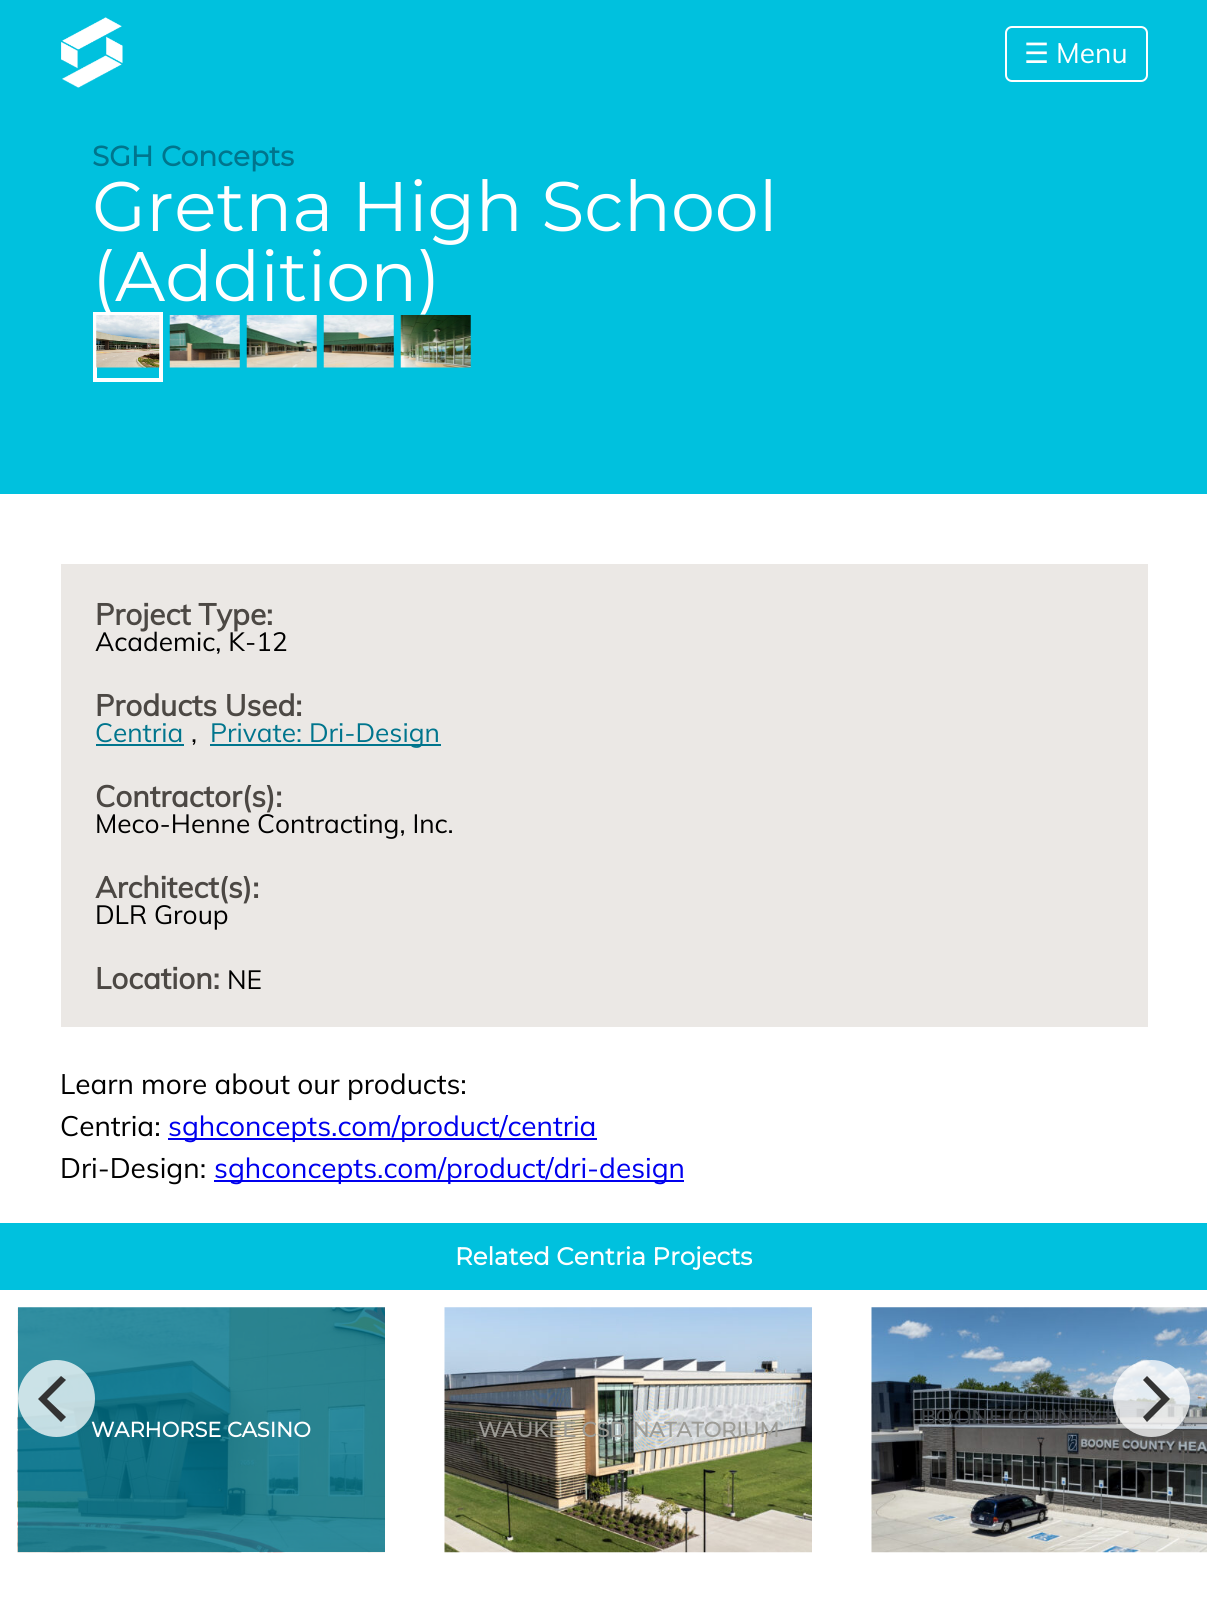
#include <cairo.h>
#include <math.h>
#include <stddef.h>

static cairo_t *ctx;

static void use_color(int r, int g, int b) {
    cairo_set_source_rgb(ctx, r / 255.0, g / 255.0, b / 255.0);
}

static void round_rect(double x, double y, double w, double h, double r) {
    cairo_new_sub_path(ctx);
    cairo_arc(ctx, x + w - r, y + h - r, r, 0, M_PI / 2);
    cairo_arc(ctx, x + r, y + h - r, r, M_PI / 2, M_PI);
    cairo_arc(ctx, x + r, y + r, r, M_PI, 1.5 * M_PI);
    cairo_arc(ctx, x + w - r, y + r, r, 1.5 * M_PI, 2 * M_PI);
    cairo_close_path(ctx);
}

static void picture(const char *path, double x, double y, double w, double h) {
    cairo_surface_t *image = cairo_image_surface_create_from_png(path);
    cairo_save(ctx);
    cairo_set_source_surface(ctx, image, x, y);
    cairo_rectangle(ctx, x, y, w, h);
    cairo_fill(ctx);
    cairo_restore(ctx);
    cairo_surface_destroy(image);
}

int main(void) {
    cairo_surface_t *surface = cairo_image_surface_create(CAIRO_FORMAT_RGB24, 1207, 1599);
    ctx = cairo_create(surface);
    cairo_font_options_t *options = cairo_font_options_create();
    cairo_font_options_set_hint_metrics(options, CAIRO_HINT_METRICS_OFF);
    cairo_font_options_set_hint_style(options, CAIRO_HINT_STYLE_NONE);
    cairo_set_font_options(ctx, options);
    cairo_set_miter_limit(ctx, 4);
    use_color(255, 255, 255);
    cairo_paint(ctx);
    use_color(0, 193, 222);
    cairo_rectangle(ctx, 0, 0, 1207, 494);
    cairo_fill(ctx);
    picture("img1.png", 61, 17, 62, 71);
    round_rect(1006, 27, 141, 54, 6);
    use_color(255, 255, 255);
    cairo_stroke(ctx);
    cairo_select_font_face(ctx, "DejaVu Sans", CAIRO_FONT_SLANT_NORMAL, CAIRO_FONT_WEIGHT_NORMAL);
    cairo_set_font_size(ctx, 28);
    cairo_move_to(ctx, 1024, 63);
    cairo_show_text(ctx, "☰");
    cairo_select_font_face(ctx, "Muli", CAIRO_FONT_SLANT_NORMAL, CAIRO_FONT_WEIGHT_NORMAL);
    cairo_move_to(ctx, 1056, 63);
    cairo_show_text(ctx, "Menu");
    cairo_select_font_face(ctx, "Montserrat", CAIRO_FONT_SLANT_NORMAL, CAIRO_FONT_WEIGHT_BOLD);
    use_color(0, 117, 141);
    cairo_move_to(ctx, 92, 166);
    cairo_show_text(ctx, "SGH Concepts");
    cairo_select_font_face(ctx, "Montserrat Thin", CAIRO_FONT_SLANT_NORMAL, CAIRO_FONT_WEIGHT_NORMAL);
    cairo_set_font_size(ctx, 70);
    use_color(255, 255, 255);
    cairo_move_to(ctx, 92, 231);
    cairo_show_text(ctx, "Gretna High School");
    cairo_move_to(ctx, 92, 301);
    cairo_show_text(ctx, "(Addition)");
    cairo_rectangle(ctx, 95, 314, 66, 66);
    cairo_set_line_width(ctx, 4);
    cairo_stroke(ctx);
    picture("img2.png", 96, 315, 64, 53);
    picture("img3.png", 169, 315, 71, 53);
    picture("img4.png", 246, 315, 71, 53);
    picture("img5.png", 323, 315, 71, 53);
    picture("img6.png", 400, 315, 71, 53);
    use_color(235, 232, 229);
    cairo_rectangle(ctx, 61, 564, 1087, 463);
    cairo_fill(ctx);
    cairo_select_font_face(ctx, "Muli", CAIRO_FONT_SLANT_NORMAL, CAIRO_FONT_WEIGHT_BOLD);
    cairo_set_font_size(ctx, 29.75);
    use_color(76, 72, 68);
    cairo_move_to(ctx, 95, 625);
    cairo_show_text(ctx, "Project Type:");
    cairo_select_font_face(ctx, "Muli", CAIRO_FONT_SLANT_NORMAL, CAIRO_FONT_WEIGHT_NORMAL);
    cairo_set_font_size(ctx, 26.25);
    use_color(0, 0, 0);
    cairo_move_to(ctx, 95, 651);
    cairo_show_text(ctx, "Academic, K-12");
    cairo_select_font_face(ctx, "Muli", CAIRO_FONT_SLANT_NORMAL, CAIRO_FONT_WEIGHT_BOLD);
    cairo_set_font_size(ctx, 29.75);
    use_color(76, 72, 68);
    cairo_move_to(ctx, 95, 716);
    cairo_show_text(ctx, "Products Used:");
    cairo_select_font_face(ctx, "Muli", CAIRO_FONT_SLANT_NORMAL, CAIRO_FONT_WEIGHT_NORMAL);
    cairo_set_font_size(ctx, 26.25);
    use_color(0, 117, 141);
    cairo_move_to(ctx, 95, 742);
    cairo_show_text(ctx, "Centria");
    cairo_rectangle(ctx, 96, 744, 88, 2);
    cairo_fill(ctx);
    use_color(0, 0, 0);
    cairo_move_to(ctx, 191, 742);
    cairo_show_text(ctx, ",");
    use_color(0, 117, 141);
    cairo_rectangle(ctx, 210, 744, 231, 2);
    cairo_fill(ctx);
    cairo_move_to(ctx, 210, 742);
    cairo_show_text(ctx, "Private: Dri-Design");
    cairo_select_font_face(ctx, "Muli", CAIRO_FONT_SLANT_NORMAL, CAIRO_FONT_WEIGHT_BOLD);
    cairo_set_font_size(ctx, 29.75);
    use_color(76, 72, 68);
    cairo_move_to(ctx, 95, 807);
    cairo_show_text(ctx, "Contractor(s):");
    cairo_select_font_face(ctx, "Muli", CAIRO_FONT_SLANT_NORMAL, CAIRO_FONT_WEIGHT_NORMAL);
    cairo_set_font_size(ctx, 26.25);
    use_color(0, 0, 0);
    cairo_move_to(ctx, 95, 833);
    cairo_show_text(ctx, "Meco-Henne Contracting, Inc.");
    cairo_select_font_face(ctx, "Muli", CAIRO_FONT_SLANT_NORMAL, CAIRO_FONT_WEIGHT_BOLD);
    cairo_set_font_size(ctx, 29.75);
    use_color(76, 72, 68);
    cairo_move_to(ctx, 95, 898);
    cairo_show_text(ctx, "Architect(s):");
    cairo_select_font_face(ctx, "Muli", CAIRO_FONT_SLANT_NORMAL, CAIRO_FONT_WEIGHT_NORMAL);
    cairo_set_font_size(ctx, 26.25);
    use_color(0, 0, 0);
    cairo_move_to(ctx, 95, 924);
    cairo_show_text(ctx, "DLR Group");
    cairo_select_font_face(ctx, "Muli", CAIRO_FONT_SLANT_NORMAL, CAIRO_FONT_WEIGHT_BOLD);
    cairo_set_font_size(ctx, 29.75);
    use_color(76, 72, 68);
    cairo_move_to(ctx, 95, 989);
    cairo_show_text(ctx, "Location:");
    cairo_select_font_face(ctx, "Muli", CAIRO_FONT_SLANT_NORMAL, CAIRO_FONT_WEIGHT_NORMAL);
    cairo_set_font_size(ctx, 26.25);
    use_color(0, 0, 0);
    cairo_move_to(ctx, 227, 989);
    cairo_show_text(ctx, "NE");
    cairo_set_font_size(ctx, 28);
    cairo_move_to(ctx, 60, 1094);
    cairo_show_text(ctx, "Learn more about our products:");
    cairo_move_to(ctx, 60, 1136);
    cairo_show_text(ctx, "Centria:");
    use_color(0, 0, 238);
    cairo_rectangle(ctx, 168, 1138, 429, 2);
    cairo_fill(ctx);
    cairo_move_to(ctx, 168, 1136);
    cairo_show_text(ctx, "sghconcepts.com/product/centria");
    use_color(0, 0, 0);
    cairo_move_to(ctx, 60, 1178);
    cairo_show_text(ctx, "Dri-Design:");
    use_color(0, 0, 238);
    cairo_rectangle(ctx, 214, 1180, 470, 2);
    cairo_fill(ctx);
    cairo_move_to(ctx, 214, 1178);
    cairo_show_text(ctx, "sghconcepts.com/product/dri-design");
    use_color(0, 193, 222);
    cairo_rectangle(ctx, 0, 1223, 1207, 67);
    cairo_fill(ctx);
    cairo_select_font_face(ctx, "Montserrat", CAIRO_FONT_SLANT_NORMAL, CAIRO_FONT_WEIGHT_BOLD);
    cairo_set_font_size(ctx, 24.5);
    use_color(255, 255, 255);
    cairo_move_to(ctx, 455, 1265);
    cairo_show_text(ctx, "Related Centria Projects");
    picture("img8.png", 17, 1307, 368, 246);
    cairo_set_font_size(ctx, 21);
    cairo_move_to(ctx, 91, 1437);
    cairo_show_text(ctx, "WARHORSE CASINO");
    cairo_set_source_rgba(ctx, 1, 1, 1, 0.75);
    cairo_new_path(ctx);
    cairo_arc(ctx, 56.5, 1398.5, 38.5, 0, 2 * M_PI);
    cairo_fill(ctx);
    use_color(51, 51, 51);
    cairo_new_path(ctx);
    cairo_move_to(ctx, 38, 1399);
    cairo_line_to(ctx, 61, 1422);
    cairo_line_to(ctx, 66, 1417);
    cairo_line_to(ctx, 47, 1399);
    cairo_line_to(ctx, 66, 1380);
    cairo_line_to(ctx, 61, 1376);
    cairo_close_path(ctx);
    cairo_fill(ctx);
    picture("img7.png", 871, 1307, 336, 246);
    use_color(63, 67, 71);
    cairo_move_to(ctx, 920, 1424);
    cairo_show_text(ctx, "BOONE COUNTY H");
    picture("img9.png", 444, 1307, 368, 246);
    use_color(156, 155, 149);
    cairo_move_to(ctx, 478, 1437);
    cairo_show_text(ctx, "WAUKEE CSD NATATORIUM");
    cairo_set_source_rgba(ctx, 1, 1, 1, 0.75);
    cairo_new_path(ctx);
    cairo_arc(ctx, 1151.5, 1398.5, 38.5, 0, 2 * M_PI);
    cairo_fill(ctx);
    use_color(51, 51, 51);
    cairo_new_path(ctx);
    cairo_move_to(ctx, 1170, 1399);
    cairo_line_to(ctx, 1147, 1376);
    cairo_line_to(ctx, 1143, 1380);
    cairo_line_to(ctx, 1161, 1399);
    cairo_line_to(ctx, 1143, 1417);
    cairo_line_to(ctx, 1147, 1422);
    cairo_close_path(ctx);
    cairo_fill(ctx);
    cairo_surface_write_to_png(surface, "result.png");
    cairo_font_options_destroy(options);
    cairo_destroy(ctx);
    cairo_surface_destroy(surface);
    return 0;
}
